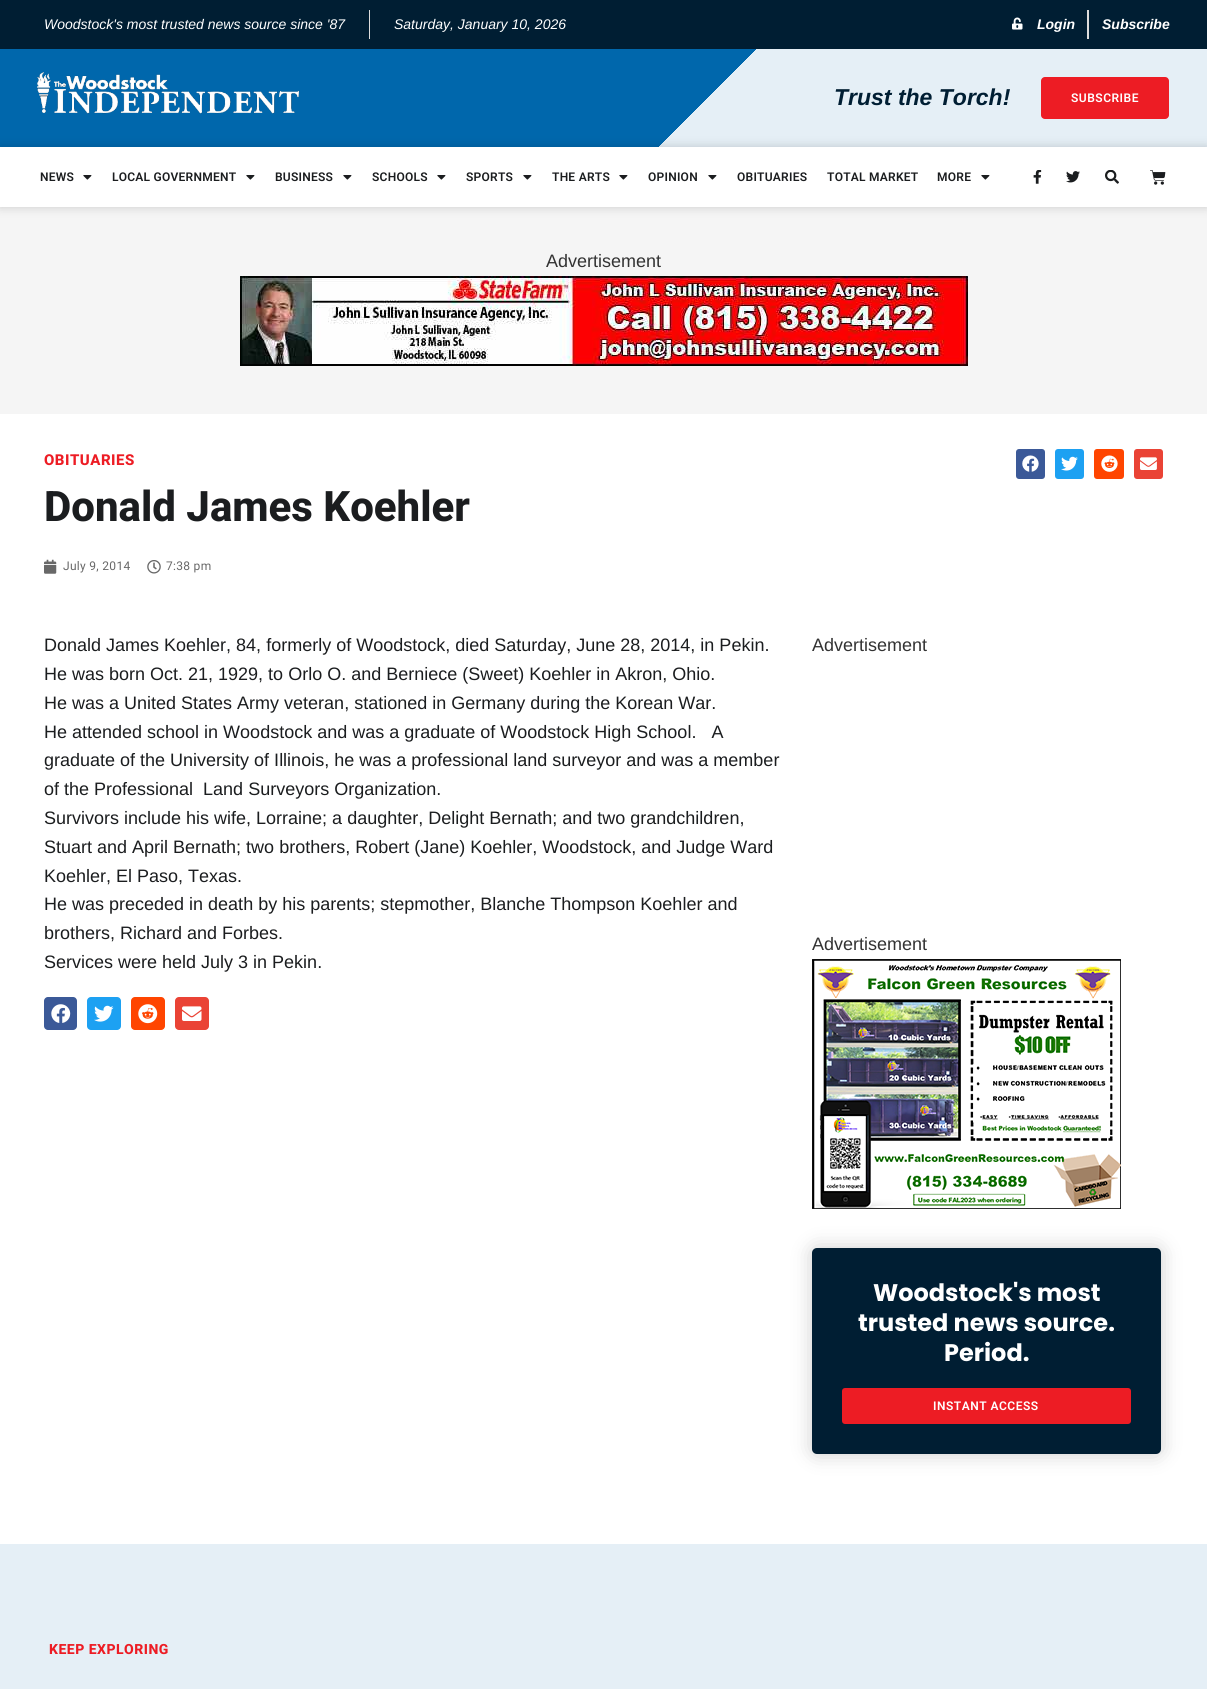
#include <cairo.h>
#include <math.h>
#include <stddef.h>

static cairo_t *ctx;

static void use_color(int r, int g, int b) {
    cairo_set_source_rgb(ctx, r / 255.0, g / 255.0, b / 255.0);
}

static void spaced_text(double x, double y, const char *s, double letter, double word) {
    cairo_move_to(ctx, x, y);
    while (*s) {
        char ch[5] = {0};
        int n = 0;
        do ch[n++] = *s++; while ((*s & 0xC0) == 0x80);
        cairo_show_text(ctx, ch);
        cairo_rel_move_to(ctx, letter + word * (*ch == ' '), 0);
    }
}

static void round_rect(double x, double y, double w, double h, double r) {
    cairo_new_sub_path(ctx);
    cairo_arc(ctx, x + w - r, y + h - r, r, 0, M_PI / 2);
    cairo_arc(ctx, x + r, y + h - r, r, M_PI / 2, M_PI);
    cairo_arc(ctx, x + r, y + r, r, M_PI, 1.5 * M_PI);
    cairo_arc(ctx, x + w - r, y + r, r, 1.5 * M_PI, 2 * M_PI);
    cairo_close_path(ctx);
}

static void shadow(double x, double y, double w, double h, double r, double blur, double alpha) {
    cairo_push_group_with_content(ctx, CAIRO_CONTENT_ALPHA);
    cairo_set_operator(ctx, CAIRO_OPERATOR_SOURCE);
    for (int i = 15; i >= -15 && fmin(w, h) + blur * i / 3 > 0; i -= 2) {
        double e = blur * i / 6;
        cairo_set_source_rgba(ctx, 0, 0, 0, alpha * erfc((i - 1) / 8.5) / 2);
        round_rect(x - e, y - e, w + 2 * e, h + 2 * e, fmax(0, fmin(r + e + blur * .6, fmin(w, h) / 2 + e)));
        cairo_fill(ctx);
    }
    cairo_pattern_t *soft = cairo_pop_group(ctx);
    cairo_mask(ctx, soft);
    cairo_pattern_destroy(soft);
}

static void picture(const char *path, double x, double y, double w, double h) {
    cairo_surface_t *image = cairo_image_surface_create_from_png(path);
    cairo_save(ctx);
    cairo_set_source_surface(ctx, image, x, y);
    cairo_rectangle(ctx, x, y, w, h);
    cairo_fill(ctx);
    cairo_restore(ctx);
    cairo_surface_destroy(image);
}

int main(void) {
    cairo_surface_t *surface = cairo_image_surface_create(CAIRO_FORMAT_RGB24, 1207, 1689);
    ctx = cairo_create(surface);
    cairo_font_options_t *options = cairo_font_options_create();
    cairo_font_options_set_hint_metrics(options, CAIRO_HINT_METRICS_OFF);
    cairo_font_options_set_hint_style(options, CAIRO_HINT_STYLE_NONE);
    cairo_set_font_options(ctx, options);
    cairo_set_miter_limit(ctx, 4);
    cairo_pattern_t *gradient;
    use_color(255, 255, 255);
    cairo_paint(ctx);
    use_color(0, 30, 51);
    cairo_rectangle(ctx, 0, 0, 1207, 49);
    cairo_fill(ctx);
    cairo_select_font_face(ctx, "Liberation Sans", CAIRO_FONT_SLANT_ITALIC, CAIRO_FONT_WEIGHT_NORMAL);
    cairo_set_font_size(ctx, 14);
    use_color(255, 255, 255);
    cairo_move_to(ctx, 44, 29);
    cairo_show_text(ctx, "Woodstock's most trusted news source since '87");
    use_color(221, 221, 221);
    cairo_rectangle(ctx, 369, 10, 1, 29);
    cairo_fill(ctx);
    use_color(255, 255, 255);
    cairo_move_to(ctx, 394, 29);
    cairo_show_text(ctx, "Saturday, January 10, 2026");
    picture("img1.png", 1012, 17, 11, 13);
    cairo_select_font_face(ctx, "Liberation Sans", CAIRO_FONT_SLANT_ITALIC, CAIRO_FONT_WEIGHT_BOLD);
    cairo_move_to(ctx, 1037, 29);
    cairo_show_text(ctx, "Login");
    use_color(221, 221, 221);
    cairo_rectangle(ctx, 1087, 10, 2, 29);
    cairo_fill(ctx);
    use_color(255, 255, 255);
    cairo_move_to(ctx, 1102, 29);
    cairo_show_text(ctx, "Subscribe");
    gradient = cairo_pattern_create_linear(930, 424, 277, -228);
    cairo_pattern_add_color_stop_rgba(gradient, 0.42, 0.898, 0.937, 0.965, 1);
    cairo_pattern_add_color_stop_rgba(gradient, 0.42, 0, 0.404, 0.675, 1);
    cairo_set_source(ctx, gradient);
    cairo_pattern_destroy(gradient);
    cairo_rectangle(ctx, 0, 49, 1207, 98);
    cairo_fill(ctx);
    picture("img2.png", 37, 72, 263, 42);
    cairo_set_font_size(ctx, 23);
    use_color(0, 30, 51);
    cairo_move_to(ctx, 834, 105);
    cairo_show_text(ctx, "Trust the Torch!");
    use_color(237, 28, 36);
    round_rect(1041, 77, 128, 42, 4);
    cairo_fill(ctx);
    cairo_select_font_face(ctx, "Roboto SemiBold", CAIRO_FONT_SLANT_NORMAL, CAIRO_FONT_WEIGHT_NORMAL);
    cairo_set_font_size(ctx, 12);
    use_color(255, 255, 255);
    spaced_text(1071, 102, "SUBSCRIBE", 0.5, 0);
    use_color(245, 245, 245);
    cairo_rectangle(ctx, 0, 207, 1207, 207);
    cairo_fill(ctx);
    cairo_save(ctx);
    cairo_set_fill_rule(ctx, CAIRO_FILL_RULE_EVEN_ODD);
    cairo_new_path(ctx);
    cairo_move_to(ctx, 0, 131);
    cairo_line_to(ctx, 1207, 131);
    cairo_line_to(ctx, 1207, 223);
    cairo_line_to(ctx, 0, 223);
    cairo_close_path(ctx);
    cairo_move_to(ctx, 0, 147);
    cairo_line_to(ctx, 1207, 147);
    cairo_line_to(ctx, 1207, 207);
    cairo_line_to(ctx, 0, 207);
    cairo_close_path(ctx);
    cairo_clip(ctx);
    use_color(0, 0, 0);
    shadow(0, 147, 1207, 60, 0, 5, 0.18);
    cairo_restore(ctx);
    use_color(27, 29, 31);
    spaced_text(40, 181, "NEWS", 0.25, 0);
    picture("img3.png", 83, 175, 9, 5);
    spaced_text(112, 181, "LOCAL GOVERNMENT", 0.25, 0);
    picture("img3.png", 246, 175, 9, 5);
    spaced_text(275, 181, "BUSINESS", 0.25, 0);
    picture("img3.png", 343, 175, 9, 5);
    spaced_text(372, 181, "SCHOOLS", 0.25, 0);
    picture("img3.png", 437, 175, 9, 5);
    spaced_text(466, 181, "SPORTS", 0.25, 0);
    picture("img3.png", 523, 175, 9, 5);
    spaced_text(552, 181, "THE ARTS", 0.25, 0);
    picture("img3.png", 619, 175, 9, 5);
    spaced_text(648, 181, "OPINION", 0.25, 0);
    picture("img3.png", 708, 175, 9, 5);
    spaced_text(737, 181, "OBITUARIES", 0.25, 0);
    spaced_text(827, 181, "TOTAL MARKET", 0.25, 0);
    spaced_text(937, 181, "MORE", 0.25, 0);
    picture("img3.png", 981, 175, 9, 5);
    picture("img4.png", 1033, 170, 9, 14);
    picture("img5.png", 1066, 171, 14, 12);
    picture("img6.png", 1105, 170, 14, 14);
    picture("img7.png", 1150, 170, 16, 15);
    cairo_select_font_face(ctx, "Liberation Sans", CAIRO_FONT_SLANT_NORMAL, CAIRO_FONT_WEIGHT_NORMAL);
    cairo_set_font_size(ctx, 18);
    use_color(51, 51, 51);
    cairo_move_to(ctx, 546, 267);
    cairo_show_text(ctx, "Advertisement");
    picture("img8.png", 240, 276, 728, 90);
    cairo_select_font_face(ctx, "Roboto ExtraBold", CAIRO_FONT_SLANT_NORMAL, CAIRO_FONT_WEIGHT_NORMAL);
    cairo_set_font_size(ctx, 15);
    use_color(237, 28, 36);
    spaced_text(44, 465, "OBITUARIES", 0.5, 0);
    cairo_set_font_size(ctx, 42);
    use_color(27, 29, 31);
    cairo_move_to(ctx, 44, 521);
    cairo_show_text(ctx, "Donald James Koehler");
    picture("img9.png", 44, 559, 13, 15);
    cairo_select_font_face(ctx, "Roboto", CAIRO_FONT_SLANT_NORMAL, CAIRO_FONT_WEIGHT_NORMAL);
    cairo_set_font_size(ctx, 12);
    use_color(104, 104, 104);
    spaced_text(63, 570, "July 9, 2014", 0.3, 0);
    picture("img10.png", 147, 560, 14, 14);
    spaced_text(166, 570, "7:38 pm", 0.3, 0);
    use_color(59, 89, 152);
    round_rect(1016, 449, 29, 30, 3);
    cairo_fill(ctx);
    picture("img11.png", 1022, 455, 17, 17);
    use_color(29, 161, 242);
    round_rect(1055, 449, 29, 30, 3);
    cairo_fill(ctx);
    picture("img12.png", 1061, 456, 17, 15);
    use_color(255, 69, 0);
    round_rect(1094, 449, 30, 30, 3);
    cairo_fill(ctx);
    picture("img13.png", 1101, 455, 17, 17);
    use_color(234, 67, 53);
    round_rect(1134, 449, 29, 30, 3);
    cairo_fill(ctx);
    picture("img14.png", 1140, 457, 17, 13);
    cairo_select_font_face(ctx, "Liberation Sans", CAIRO_FONT_SLANT_NORMAL, CAIRO_FONT_WEIGHT_NORMAL);
    cairo_set_font_size(ctx, 18);
    use_color(27, 29, 31);
    cairo_move_to(ctx, 44, 651);
    cairo_show_text(ctx, "Donald James Koehler, 84, formerly of Woodstock, died Saturday, June 28, 2014, in Pekin.");
    cairo_move_to(ctx, 44, 680);
    cairo_show_text(ctx, "He was born Oct. 21, 1929, to Orlo O. and Berniece (Sweet) Koehler in Akron, Ohio.");
    cairo_move_to(ctx, 44, 709);
    cairo_show_text(ctx, "He was a United States Army veteran, stationed in Germany during the Korean War.");
    cairo_move_to(ctx, 44, 738);
    cairo_show_text(ctx, "He attended school in Woodstock and was a graduate of Woodstock High School.   A");
    cairo_move_to(ctx, 44, 766);
    cairo_show_text(ctx, "graduate of the University of Illinois, he was a professional land surveyor and was a member");
    cairo_move_to(ctx, 44, 795);
    cairo_show_text(ctx, "of the Professional  Land Surveyors Organization.");
    cairo_move_to(ctx, 44, 824);
    cairo_show_text(ctx, "Survivors include his wife, Lorraine; a daughter, Delight Bernath; and two grandchildren,");
    cairo_move_to(ctx, 44, 853);
    cairo_show_text(ctx, "Stuart and April Bernath; two brothers, Robert (Jane) Koehler, Woodstock, and Judge Ward");
    cairo_move_to(ctx, 44, 882);
    cairo_show_text(ctx, "Koehler, El Paso, Texas.");
    cairo_move_to(ctx, 44, 910);
    cairo_show_text(ctx, "He was preceded in death by his parents; stepmother, Blanche Thompson Koehler and");
    cairo_move_to(ctx, 44, 939);
    cairo_show_text(ctx, "brothers, Richard and Forbes.");
    cairo_move_to(ctx, 44, 968);
    cairo_show_text(ctx, "Services were held July 3 in Pekin.");
    use_color(59, 89, 152);
    round_rect(44, 997, 33, 33, 4);
    cairo_fill(ctx);
    picture("img15.png", 51, 1004, 20, 19);
    use_color(29, 161, 242);
    round_rect(87, 997, 34, 33, 4);
    cairo_fill(ctx);
    picture("img16.png", 94, 1005, 20, 17);
    use_color(255, 69, 0);
    round_rect(131, 997, 34, 33, 4);
    cairo_fill(ctx);
    picture("img17.png", 138, 1004, 20, 20);
    use_color(234, 67, 53);
    round_rect(175, 997, 34, 33, 4);
    cairo_fill(ctx);
    picture("img18.png", 182, 1006, 20, 15);
    use_color(51, 51, 51);
    cairo_move_to(ctx, 812, 651);
    cairo_show_text(ctx, "Advertisement");
    cairo_move_to(ctx, 812, 950);
    cairo_show_text(ctx, "Advertisement");
    picture("img19.png", 812, 959, 309, 250);
    use_color(0, 0, 0);
    shadow(812, 1248, 349, 206, 5, 10, 0.2);
    use_color(0, 30, 51);
    round_rect(812, 1248, 349, 206, 5);
    cairo_fill(ctx);
    cairo_select_font_face(ctx, "Poppins", CAIRO_FONT_SLANT_NORMAL, CAIRO_FONT_WEIGHT_BOLD);
    cairo_set_font_size(ctx, 24);
    use_color(255, 255, 255);
    cairo_move_to(ctx, 873, 1301);
    cairo_show_text(ctx, "Woodstock's most");
    cairo_move_to(ctx, 858, 1331);
    cairo_show_text(ctx, "trusted news source.");
    cairo_move_to(ctx, 944, 1361);
    cairo_show_text(ctx, "Period.");
    use_color(237, 28, 36);
    round_rect(842, 1388, 289, 36, 3);
    cairo_fill(ctx);
    cairo_select_font_face(ctx, "Roboto SemiBold", CAIRO_FONT_SLANT_NORMAL, CAIRO_FONT_WEIGHT_NORMAL);
    cairo_set_font_size(ctx, 12);
    use_color(255, 255, 255);
    spaced_text(933, 1410, "INSTANT ACCESS", 0.5, 0);
    use_color(229, 239, 246);
    cairo_rectangle(ctx, 0, 1544, 1207, 145);
    cairo_fill(ctx);
    cairo_select_font_face(ctx, "Roboto ExtraBold", CAIRO_FONT_SLANT_NORMAL, CAIRO_FONT_WEIGHT_NORMAL);
    cairo_set_font_size(ctx, 14);
    use_color(237, 28, 36);
    spaced_text(49, 1654, "KEEP EXPLORING", 0.5, 0);
    cairo_surface_write_to_png(surface, "result.png");
    cairo_font_options_destroy(options);
    cairo_destroy(ctx);
    cairo_surface_destroy(surface);
    return 0;
}
